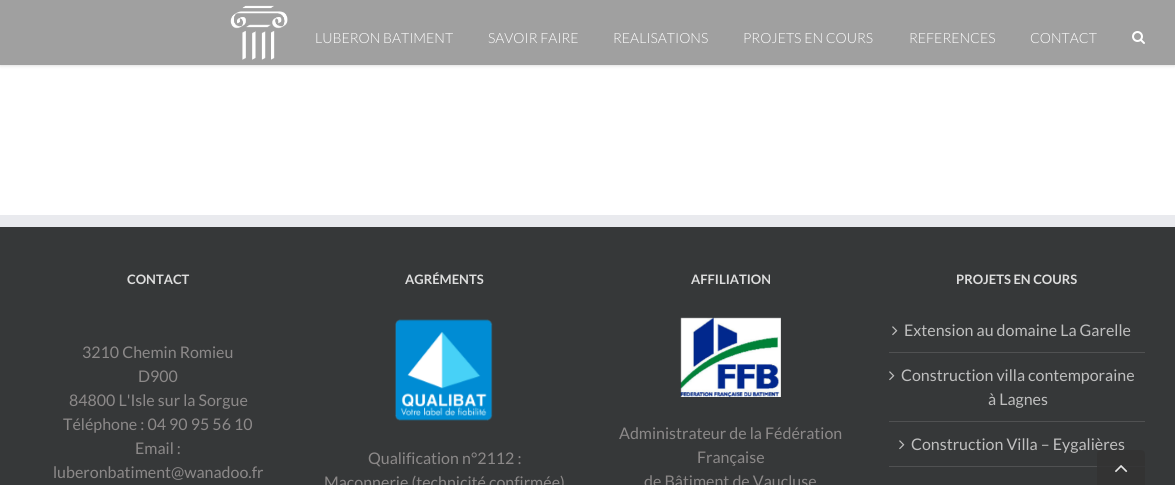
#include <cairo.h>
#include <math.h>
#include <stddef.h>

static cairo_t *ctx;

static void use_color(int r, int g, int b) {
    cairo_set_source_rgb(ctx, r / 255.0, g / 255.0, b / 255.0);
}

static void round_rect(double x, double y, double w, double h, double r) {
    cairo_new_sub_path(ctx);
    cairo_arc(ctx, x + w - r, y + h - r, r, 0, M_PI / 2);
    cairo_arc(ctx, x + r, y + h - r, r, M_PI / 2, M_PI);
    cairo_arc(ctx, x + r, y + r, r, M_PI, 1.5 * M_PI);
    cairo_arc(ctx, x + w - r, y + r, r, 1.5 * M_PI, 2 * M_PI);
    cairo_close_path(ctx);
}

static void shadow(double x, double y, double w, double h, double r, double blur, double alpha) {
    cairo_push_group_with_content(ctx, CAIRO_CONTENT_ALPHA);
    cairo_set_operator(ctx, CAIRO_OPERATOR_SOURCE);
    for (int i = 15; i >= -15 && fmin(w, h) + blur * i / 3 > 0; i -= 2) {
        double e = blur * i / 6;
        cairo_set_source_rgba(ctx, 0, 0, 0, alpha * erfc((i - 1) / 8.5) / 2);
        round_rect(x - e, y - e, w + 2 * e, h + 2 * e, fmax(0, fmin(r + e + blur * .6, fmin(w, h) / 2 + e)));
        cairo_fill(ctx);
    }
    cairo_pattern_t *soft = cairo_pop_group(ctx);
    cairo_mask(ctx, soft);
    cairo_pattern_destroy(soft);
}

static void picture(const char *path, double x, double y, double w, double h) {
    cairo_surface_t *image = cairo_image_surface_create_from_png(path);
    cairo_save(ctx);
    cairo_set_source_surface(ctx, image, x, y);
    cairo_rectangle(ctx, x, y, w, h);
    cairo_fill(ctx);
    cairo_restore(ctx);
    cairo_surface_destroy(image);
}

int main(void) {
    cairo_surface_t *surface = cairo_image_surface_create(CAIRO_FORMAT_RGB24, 1175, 485);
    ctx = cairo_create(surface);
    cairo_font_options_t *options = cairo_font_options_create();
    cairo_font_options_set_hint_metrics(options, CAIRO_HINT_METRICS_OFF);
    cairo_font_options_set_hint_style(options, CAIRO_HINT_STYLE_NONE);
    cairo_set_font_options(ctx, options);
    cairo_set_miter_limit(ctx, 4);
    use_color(255, 255, 255);
    cairo_paint(ctx);
    use_color(0, 0, 0);
    shadow(0, 1, 1175, 65, 0, 1.5, 0.12);
    use_color(160, 160, 160);
    cairo_rectangle(ctx, 0, 0, 1175, 65);
    cairo_fill(ctx);
    picture("img1.png", 230, 5, 58, 55);
    cairo_select_font_face(ctx, "Lato Light", CAIRO_FONT_SLANT_NORMAL, CAIRO_FONT_WEIGHT_NORMAL);
    cairo_set_font_size(ctx, 14);
    use_color(255, 255, 255);
    cairo_move_to(ctx, 315, 43);
    cairo_show_text(ctx, "LUBERON BATIMENT");
    cairo_move_to(ctx, 488, 43);
    cairo_show_text(ctx, "SAVOIR FAIRE");
    cairo_move_to(ctx, 613, 43);
    cairo_show_text(ctx, "REALISATIONS");
    cairo_move_to(ctx, 743, 43);
    cairo_show_text(ctx, "PROJETS EN COURS");
    cairo_move_to(ctx, 909, 43);
    cairo_show_text(ctx, "REFERENCES");
    cairo_move_to(ctx, 1030, 43);
    cairo_show_text(ctx, "CONTACT");
    picture("img2.png", 1132, 31, 13, 13);
    use_color(54, 56, 57);
    cairo_rectangle(ctx, 0, 227, 1175, 258);
    cairo_fill(ctx);
    use_color(233, 234, 238);
    cairo_rectangle(ctx, 0, 215, 1175, 12);
    cairo_fill(ctx);
    cairo_select_font_face(ctx, "Lato", CAIRO_FONT_SLANT_NORMAL, CAIRO_FONT_WEIGHT_BOLD);
    cairo_set_font_size(ctx, 13);
    use_color(221, 221, 221);
    cairo_move_to(ctx, 127, 284);
    cairo_show_text(ctx, "CONTACT");
    cairo_select_font_face(ctx, "Lato", CAIRO_FONT_SLANT_NORMAL, CAIRO_FONT_WEIGHT_NORMAL);
    cairo_set_font_size(ctx, 16);
    use_color(140, 137, 137);
    cairo_move_to(ctx, 82, 358);
    cairo_show_text(ctx, "3210 Chemin Romieu");
    cairo_move_to(ctx, 138, 382);
    cairo_show_text(ctx, "D900");
    cairo_move_to(ctx, 69, 406);
    cairo_show_text(ctx, "84800 L'Isle sur la Sorgue");
    cairo_move_to(ctx, 63, 430);
    cairo_show_text(ctx, "Téléphone : 04 90 95 56 10");
    cairo_move_to(ctx, 135, 454);
    cairo_show_text(ctx, "Email :");
    cairo_move_to(ctx, 53, 478);
    cairo_show_text(ctx, "luberonbatiment@wanadoo.fr");
    cairo_select_font_face(ctx, "Lato", CAIRO_FONT_SLANT_NORMAL, CAIRO_FONT_WEIGHT_BOLD);
    cairo_set_font_size(ctx, 13);
    use_color(221, 221, 221);
    cairo_move_to(ctx, 405, 284);
    cairo_show_text(ctx, "AGRÉMENTS");
    picture("img3.png", 395, 319, 98, 102);
    cairo_select_font_face(ctx, "Lato", CAIRO_FONT_SLANT_NORMAL, CAIRO_FONT_WEIGHT_NORMAL);
    cairo_set_font_size(ctx, 16);
    use_color(140, 137, 137);
    cairo_move_to(ctx, 368, 464);
    cairo_show_text(ctx, "Qualification n°2112 :");
    cairo_move_to(ctx, 324, 488);
    cairo_show_text(ctx, "Maçonnerie (technicité confirmée)");
    cairo_select_font_face(ctx, "Lato", CAIRO_FONT_SLANT_NORMAL, CAIRO_FONT_WEIGHT_BOLD);
    cairo_set_font_size(ctx, 13);
    use_color(221, 221, 221);
    cairo_move_to(ctx, 691, 284);
    cairo_show_text(ctx, "AFFILIATION");
    picture("img4.png", 680, 317, 101, 80);
    cairo_select_font_face(ctx, "Lato", CAIRO_FONT_SLANT_NORMAL, CAIRO_FONT_WEIGHT_NORMAL);
    cairo_set_font_size(ctx, 16);
    use_color(140, 137, 137);
    cairo_move_to(ctx, 619, 439);
    cairo_show_text(ctx, "Administrateur de la Fédération");
    cairo_move_to(ctx, 697, 463);
    cairo_show_text(ctx, "Française");
    cairo_move_to(ctx, 644, 487);
    cairo_show_text(ctx, "de Bâtiment de Vaucluse");
    cairo_select_font_face(ctx, "Lato", CAIRO_FONT_SLANT_NORMAL, CAIRO_FONT_WEIGHT_BOLD);
    cairo_set_font_size(ctx, 13);
    use_color(221, 221, 221);
    cairo_move_to(ctx, 956, 284);
    cairo_show_text(ctx, "PROJETS EN COURS");
    use_color(80, 81, 82);
    cairo_rectangle(ctx, 889, 352, 256, 1);
    cairo_fill(ctx);
    picture("img5.png", 892, 326, 6, 10);
    cairo_select_font_face(ctx, "Lato", CAIRO_FONT_SLANT_NORMAL, CAIRO_FONT_WEIGHT_NORMAL);
    cairo_set_font_size(ctx, 16);
    use_color(191, 191, 191);
    cairo_move_to(ctx, 904, 336);
    cairo_show_text(ctx, "Extension au domaine La Garelle");
    use_color(80, 81, 82);
    cairo_rectangle(ctx, 889, 421, 256, 1);
    cairo_fill(ctx);
    picture("img5.png", 889, 371, 6, 10);
    use_color(191, 191, 191);
    cairo_move_to(ctx, 901, 381);
    cairo_show_text(ctx, "Construction villa contemporaine");
    cairo_move_to(ctx, 988, 405);
    cairo_show_text(ctx, "à Lagnes");
    use_color(80, 81, 82);
    cairo_rectangle(ctx, 889, 466, 256, 1);
    cairo_fill(ctx);
    picture("img5.png", 899, 440, 6, 10);
    use_color(191, 191, 191);
    cairo_move_to(ctx, 911, 450);
    cairo_show_text(ctx, "Construction Villa – Eygalières");
    cairo_set_source_rgba(ctx, 0.2, 0.2, 0.2, 0.87);
    cairo_new_path(ctx);
    cairo_move_to(ctx, 1101, 450);
    cairo_line_to(ctx, 1141, 450);
    cairo_curve_to(ctx, 1143, 450, 1145, 452, 1145, 454);
    cairo_line_to(ctx, 1145, 485);
    cairo_line_to(ctx, 1097, 485);
    cairo_line_to(ctx, 1097, 454);
    cairo_curve_to(ctx, 1097, 452, 1099, 450, 1101, 450);
    cairo_close_path(ctx);
    cairo_fill(ctx);
    picture("img6.png", 1115, 465, 13, 8);
    cairo_surface_write_to_png(surface, "result.png");
    cairo_font_options_destroy(options);
    cairo_destroy(ctx);
    cairo_surface_destroy(surface);
    return 0;
}
